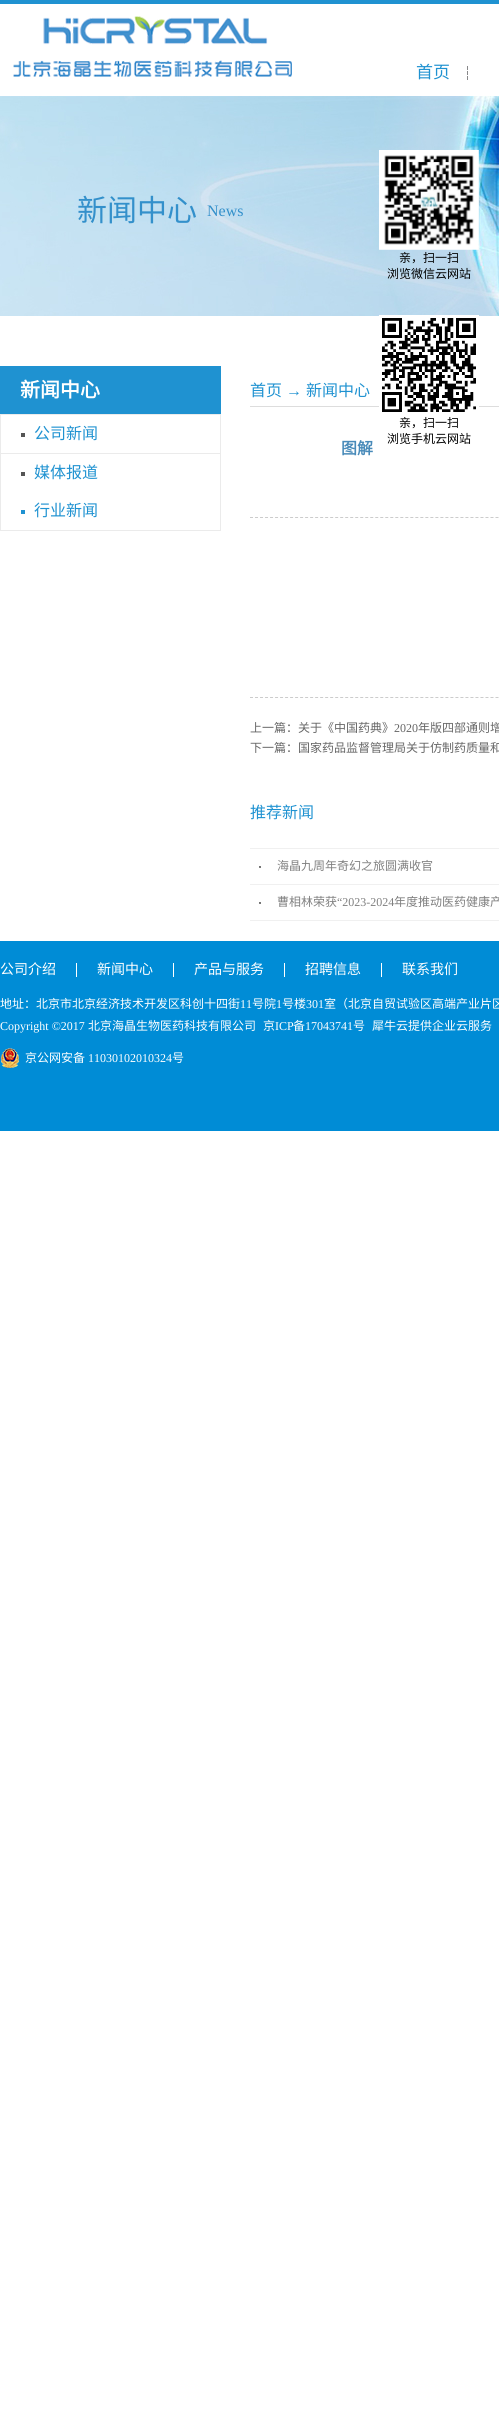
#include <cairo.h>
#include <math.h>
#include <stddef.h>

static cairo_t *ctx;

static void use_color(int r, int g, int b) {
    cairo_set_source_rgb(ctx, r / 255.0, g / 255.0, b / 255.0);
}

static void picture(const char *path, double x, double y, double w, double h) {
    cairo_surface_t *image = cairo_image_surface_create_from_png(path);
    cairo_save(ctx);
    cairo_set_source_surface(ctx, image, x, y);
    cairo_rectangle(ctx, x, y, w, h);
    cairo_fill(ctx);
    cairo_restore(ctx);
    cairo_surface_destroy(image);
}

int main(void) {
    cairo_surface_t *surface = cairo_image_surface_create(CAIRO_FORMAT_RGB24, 499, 2413);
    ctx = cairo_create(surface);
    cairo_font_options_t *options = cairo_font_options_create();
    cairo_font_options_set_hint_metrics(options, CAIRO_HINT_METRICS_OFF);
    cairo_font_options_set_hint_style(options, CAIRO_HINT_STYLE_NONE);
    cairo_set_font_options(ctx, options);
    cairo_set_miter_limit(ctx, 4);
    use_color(255, 255, 255);
    cairo_paint(ctx);
    use_color(31, 146, 209);
    cairo_rectangle(ctx, 0, 0, 499, 4);
    cairo_fill(ctx);
    picture("img1.png", 13, 16, 279, 61);
    cairo_select_font_face(ctx, "Noto Sans CJK SC", CAIRO_FONT_SLANT_NORMAL, CAIRO_FONT_WEIGHT_NORMAL);
    cairo_set_font_size(ctx, 17);
    cairo_move_to(ctx, 416, 78);
    cairo_show_text(ctx, "首页");
    picture("img2.png", 467, 66, 1, 14);
    picture("img3.png", 0, 96, 499, 220);
    cairo_set_font_size(ctx, 30);
    use_color(51, 144, 203);
    cairo_move_to(ctx, 77, 221);
    cairo_show_text(ctx, "新闻中心");
    cairo_select_font_face(ctx, "Liberation Serif", CAIRO_FONT_SLANT_NORMAL, CAIRO_FONT_WEIGHT_NORMAL);
    cairo_set_font_size(ctx, 16);
    cairo_move_to(ctx, 207, 216);
    cairo_show_text(ctx, "News");
    picture("img4.png", 379, 150, 100, 100);
    cairo_select_font_face(ctx, "Noto Sans CJK SC", CAIRO_FONT_SLANT_NORMAL, CAIRO_FONT_WEIGHT_NORMAL);
    cairo_set_font_size(ctx, 12);
    use_color(0, 0, 0);
    cairo_move_to(ctx, 399, 262);
    cairo_show_text(ctx, "亲，扫一扫");
    cairo_move_to(ctx, 387, 278);
    cairo_show_text(ctx, "浏览微信云网站");
    use_color(31, 146, 209);
    cairo_rectangle(ctx, 0, 366, 221, 48);
    cairo_fill(ctx);
    cairo_select_font_face(ctx, "Noto Sans CJK SC", CAIRO_FONT_SLANT_NORMAL, CAIRO_FONT_WEIGHT_BOLD);
    cairo_set_font_size(ctx, 20);
    use_color(255, 255, 255);
    cairo_move_to(ctx, 20, 397);
    cairo_show_text(ctx, "新闻中心");
    use_color(235, 235, 235);
    cairo_rectangle(ctx, 220, 414, 1, 117);
    cairo_fill(ctx);
    cairo_rectangle(ctx, 0, 530, 221, 1);
    cairo_fill(ctx);
    cairo_rectangle(ctx, 0, 414, 1, 117);
    cairo_fill(ctx);
    cairo_rectangle(ctx, 1, 414, 219, 1);
    cairo_fill(ctx);
    use_color(85, 85, 85);
    cairo_rectangle(ctx, 21, 433, 4, 4);
    cairo_fill(ctx);
    cairo_select_font_face(ctx, "Noto Sans CJK SC", CAIRO_FONT_SLANT_NORMAL, CAIRO_FONT_WEIGHT_NORMAL);
    cairo_set_font_size(ctx, 16);
    use_color(31, 146, 209);
    cairo_move_to(ctx, 34, 439);
    cairo_show_text(ctx, "公司新闻");
    use_color(235, 235, 235);
    cairo_rectangle(ctx, 1, 453, 219, 1);
    cairo_fill(ctx);
    use_color(85, 85, 85);
    cairo_rectangle(ctx, 21, 472, 4, 4);
    cairo_fill(ctx);
    use_color(31, 146, 209);
    cairo_move_to(ctx, 34, 478);
    cairo_show_text(ctx, "媒体报道");
    cairo_rectangle(ctx, 21, 510, 4, 4);
    cairo_fill(ctx);
    cairo_move_to(ctx, 34, 516);
    cairo_show_text(ctx, "行业新闻");
    use_color(221, 221, 221);
    cairo_rectangle(ctx, 250, 406, 249, 1);
    cairo_fill(ctx);
    use_color(31, 146, 209);
    cairo_move_to(ctx, 250, 396);
    cairo_show_text(ctx, "首页");
    cairo_select_font_face(ctx, "Liberation Serif", CAIRO_FONT_SLANT_NORMAL, CAIRO_FONT_WEIGHT_NORMAL);
    cairo_move_to(ctx, 286, 396);
    cairo_show_text(ctx, "→");
    cairo_select_font_face(ctx, "Noto Sans CJK SC", CAIRO_FONT_SLANT_NORMAL, CAIRO_FONT_WEIGHT_NORMAL);
    cairo_move_to(ctx, 306, 396);
    cairo_show_text(ctx, "新闻中心");
    cairo_new_path(ctx);
    cairo_move_to(ctx, 250, 517.5);
    cairo_line_to(ctx, 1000, 517.5);
    use_color(204, 204, 204);
    cairo_set_line_width(ctx, 1);
    cairo_set_dash(ctx, (double[]){3, 2.01}, 2, 0);
    cairo_stroke(ctx);
    cairo_select_font_face(ctx, "Noto Sans CJK SC", CAIRO_FONT_SLANT_NORMAL, CAIRO_FONT_WEIGHT_BOLD);
    use_color(72, 138, 185);
    cairo_move_to(ctx, 341, 454);
    cairo_show_text(ctx, "图解");
    cairo_new_path(ctx);
    cairo_move_to(ctx, 250, 697.5);
    cairo_line_to(ctx, 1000, 697.5);
    use_color(204, 204, 204);
    cairo_stroke(ctx);
    cairo_select_font_face(ctx, "Noto Sans CJK SC", CAIRO_FONT_SLANT_NORMAL, CAIRO_FONT_WEIGHT_NORMAL);
    cairo_set_font_size(ctx, 12);
    use_color(102, 102, 102);
    cairo_move_to(ctx, 250, 732);
    cairo_show_text(ctx, "上一篇：关于《中国药典》");
    cairo_select_font_face(ctx, "Liberation Serif", CAIRO_FONT_SLANT_NORMAL, CAIRO_FONT_WEIGHT_NORMAL);
    cairo_move_to(ctx, 394, 732);
    cairo_show_text(ctx, "2020");
    cairo_select_font_face(ctx, "Noto Sans CJK SC", CAIRO_FONT_SLANT_NORMAL, CAIRO_FONT_WEIGHT_NORMAL);
    cairo_move_to(ctx, 418, 732);
    cairo_show_text(ctx, "年版四部通则增");
    cairo_move_to(ctx, 250, 752);
    cairo_show_text(ctx, "下一篇：国家药品监督管理局关于仿制药质量和");
    cairo_set_font_size(ctx, 16);
    use_color(31, 146, 209);
    cairo_move_to(ctx, 250, 818);
    cairo_show_text(ctx, "推荐新闻");
    use_color(240, 240, 240);
    cairo_rectangle(ctx, 250, 848, 249, 1);
    cairo_fill(ctx);
    cairo_rectangle(ctx, 250, 884, 249, 1);
    cairo_fill(ctx);
    picture("img5.png", 259, 866, 2, 2);
    cairo_set_font_size(ctx, 12);
    use_color(128, 128, 128);
    cairo_move_to(ctx, 277, 870);
    cairo_show_text(ctx, "海晶九周年奇幻之旅圆满收官");
    use_color(240, 240, 240);
    cairo_rectangle(ctx, 250, 920, 249, 1);
    cairo_fill(ctx);
    picture("img5.png", 259, 902, 2, 2);
    use_color(128, 128, 128);
    cairo_move_to(ctx, 277, 906);
    cairo_show_text(ctx, "曹相林荣获");
    cairo_select_font_face(ctx, "Liberation Serif", CAIRO_FONT_SLANT_NORMAL, CAIRO_FONT_WEIGHT_NORMAL);
    cairo_move_to(ctx, 337, 906);
    cairo_show_text(ctx, "“2023-2024");
    cairo_select_font_face(ctx, "Noto Sans CJK SC", CAIRO_FONT_SLANT_NORMAL, CAIRO_FONT_WEIGHT_NORMAL);
    cairo_move_to(ctx, 394, 906);
    cairo_show_text(ctx, "年度推动医药健康产");
    picture("img6.png", 379, 315, 100, 97);
    use_color(0, 0, 0);
    cairo_move_to(ctx, 399, 427);
    cairo_show_text(ctx, "亲，扫一扫");
    cairo_move_to(ctx, 387, 443);
    cairo_show_text(ctx, "浏览手机云网站");
    use_color(0, 140, 214);
    cairo_rectangle(ctx, 0, 941, 499, 190);
    cairo_fill(ctx);
    use_color(255, 255, 255);
    cairo_rectangle(ctx, 76, 963, 1, 14);
    cairo_fill(ctx);
    cairo_set_font_size(ctx, 14);
    cairo_move_to(ctx, 0, 974);
    cairo_show_text(ctx, "公司介绍");
    cairo_rectangle(ctx, 173, 963, 1, 14);
    cairo_fill(ctx);
    cairo_move_to(ctx, 97, 974);
    cairo_show_text(ctx, "新闻中心");
    cairo_rectangle(ctx, 284, 963, 1, 14);
    cairo_fill(ctx);
    cairo_move_to(ctx, 194, 974);
    cairo_show_text(ctx, "产品与服务");
    cairo_rectangle(ctx, 381, 963, 1, 14);
    cairo_fill(ctx);
    cairo_move_to(ctx, 305, 974);
    cairo_show_text(ctx, "招聘信息");
    cairo_move_to(ctx, 402, 974);
    cairo_show_text(ctx, "联系我们");
    cairo_set_font_size(ctx, 12);
    cairo_move_to(ctx, 0, 1008);
    cairo_show_text(ctx, "地址：北京市北京经济技术开发区科创十四街");
    cairo_select_font_face(ctx, "Liberation Serif", CAIRO_FONT_SLANT_NORMAL, CAIRO_FONT_WEIGHT_NORMAL);
    cairo_move_to(ctx, 240, 1008);
    cairo_show_text(ctx, "11");
    cairo_select_font_face(ctx, "Noto Sans CJK SC", CAIRO_FONT_SLANT_NORMAL, CAIRO_FONT_WEIGHT_NORMAL);
    cairo_move_to(ctx, 252, 1008);
    cairo_show_text(ctx, "号院");
    cairo_select_font_face(ctx, "Liberation Serif", CAIRO_FONT_SLANT_NORMAL, CAIRO_FONT_WEIGHT_NORMAL);
    cairo_move_to(ctx, 276, 1008);
    cairo_show_text(ctx, "1");
    cairo_select_font_face(ctx, "Noto Sans CJK SC", CAIRO_FONT_SLANT_NORMAL, CAIRO_FONT_WEIGHT_NORMAL);
    cairo_move_to(ctx, 282, 1008);
    cairo_show_text(ctx, "号楼");
    cairo_select_font_face(ctx, "Liberation Serif", CAIRO_FONT_SLANT_NORMAL, CAIRO_FONT_WEIGHT_NORMAL);
    cairo_move_to(ctx, 306, 1008);
    cairo_show_text(ctx, "301");
    cairo_select_font_face(ctx, "Noto Sans CJK SC", CAIRO_FONT_SLANT_NORMAL, CAIRO_FONT_WEIGHT_NORMAL);
    cairo_move_to(ctx, 324, 1008);
    cairo_show_text(ctx, "室（北京自贸试验区高端产业片区");
    cairo_select_font_face(ctx, "Liberation Serif", CAIRO_FONT_SLANT_NORMAL, CAIRO_FONT_WEIGHT_NORMAL);
    cairo_move_to(ctx, 0, 1030);
    cairo_show_text(ctx, "Copyright ©2017");
    cairo_select_font_face(ctx, "Noto Sans CJK SC", CAIRO_FONT_SLANT_NORMAL, CAIRO_FONT_WEIGHT_NORMAL);
    cairo_move_to(ctx, 88, 1030);
    cairo_show_text(ctx, "北京海晶生物医药科技有限公司");
    cairo_move_to(ctx, 263, 1030);
    cairo_show_text(ctx, "京");
    cairo_select_font_face(ctx, "Liberation Serif", CAIRO_FONT_SLANT_NORMAL, CAIRO_FONT_WEIGHT_NORMAL);
    cairo_move_to(ctx, 275, 1030);
    cairo_show_text(ctx, "ICP");
    cairo_select_font_face(ctx, "Noto Sans CJK SC", CAIRO_FONT_SLANT_NORMAL, CAIRO_FONT_WEIGHT_NORMAL);
    cairo_move_to(ctx, 293, 1030);
    cairo_show_text(ctx, "备");
    cairo_select_font_face(ctx, "Liberation Serif", CAIRO_FONT_SLANT_NORMAL, CAIRO_FONT_WEIGHT_NORMAL);
    cairo_move_to(ctx, 305, 1030);
    cairo_show_text(ctx, "17043741");
    cairo_select_font_face(ctx, "Noto Sans CJK SC", CAIRO_FONT_SLANT_NORMAL, CAIRO_FONT_WEIGHT_NORMAL);
    cairo_move_to(ctx, 353, 1030);
    cairo_show_text(ctx, "号");
    cairo_move_to(ctx, 372, 1030);
    cairo_show_text(ctx, "犀牛云提供企业云服务");
    picture("img7.png", 1, 1048, 18, 20);
    cairo_move_to(ctx, 25, 1062);
    cairo_show_text(ctx, "京公网安备");
    cairo_select_font_face(ctx, "Liberation Serif", CAIRO_FONT_SLANT_NORMAL, CAIRO_FONT_WEIGHT_NORMAL);
    cairo_move_to(ctx, 88, 1062);
    cairo_show_text(ctx, "11030102010324");
    cairo_select_font_face(ctx, "Noto Sans CJK SC", CAIRO_FONT_SLANT_NORMAL, CAIRO_FONT_WEIGHT_NORMAL);
    cairo_move_to(ctx, 172, 1062);
    cairo_show_text(ctx, "号");
    cairo_surface_write_to_png(surface, "result.png");
    cairo_font_options_destroy(options);
    cairo_destroy(ctx);
    cairo_surface_destroy(surface);
    return 0;
}
